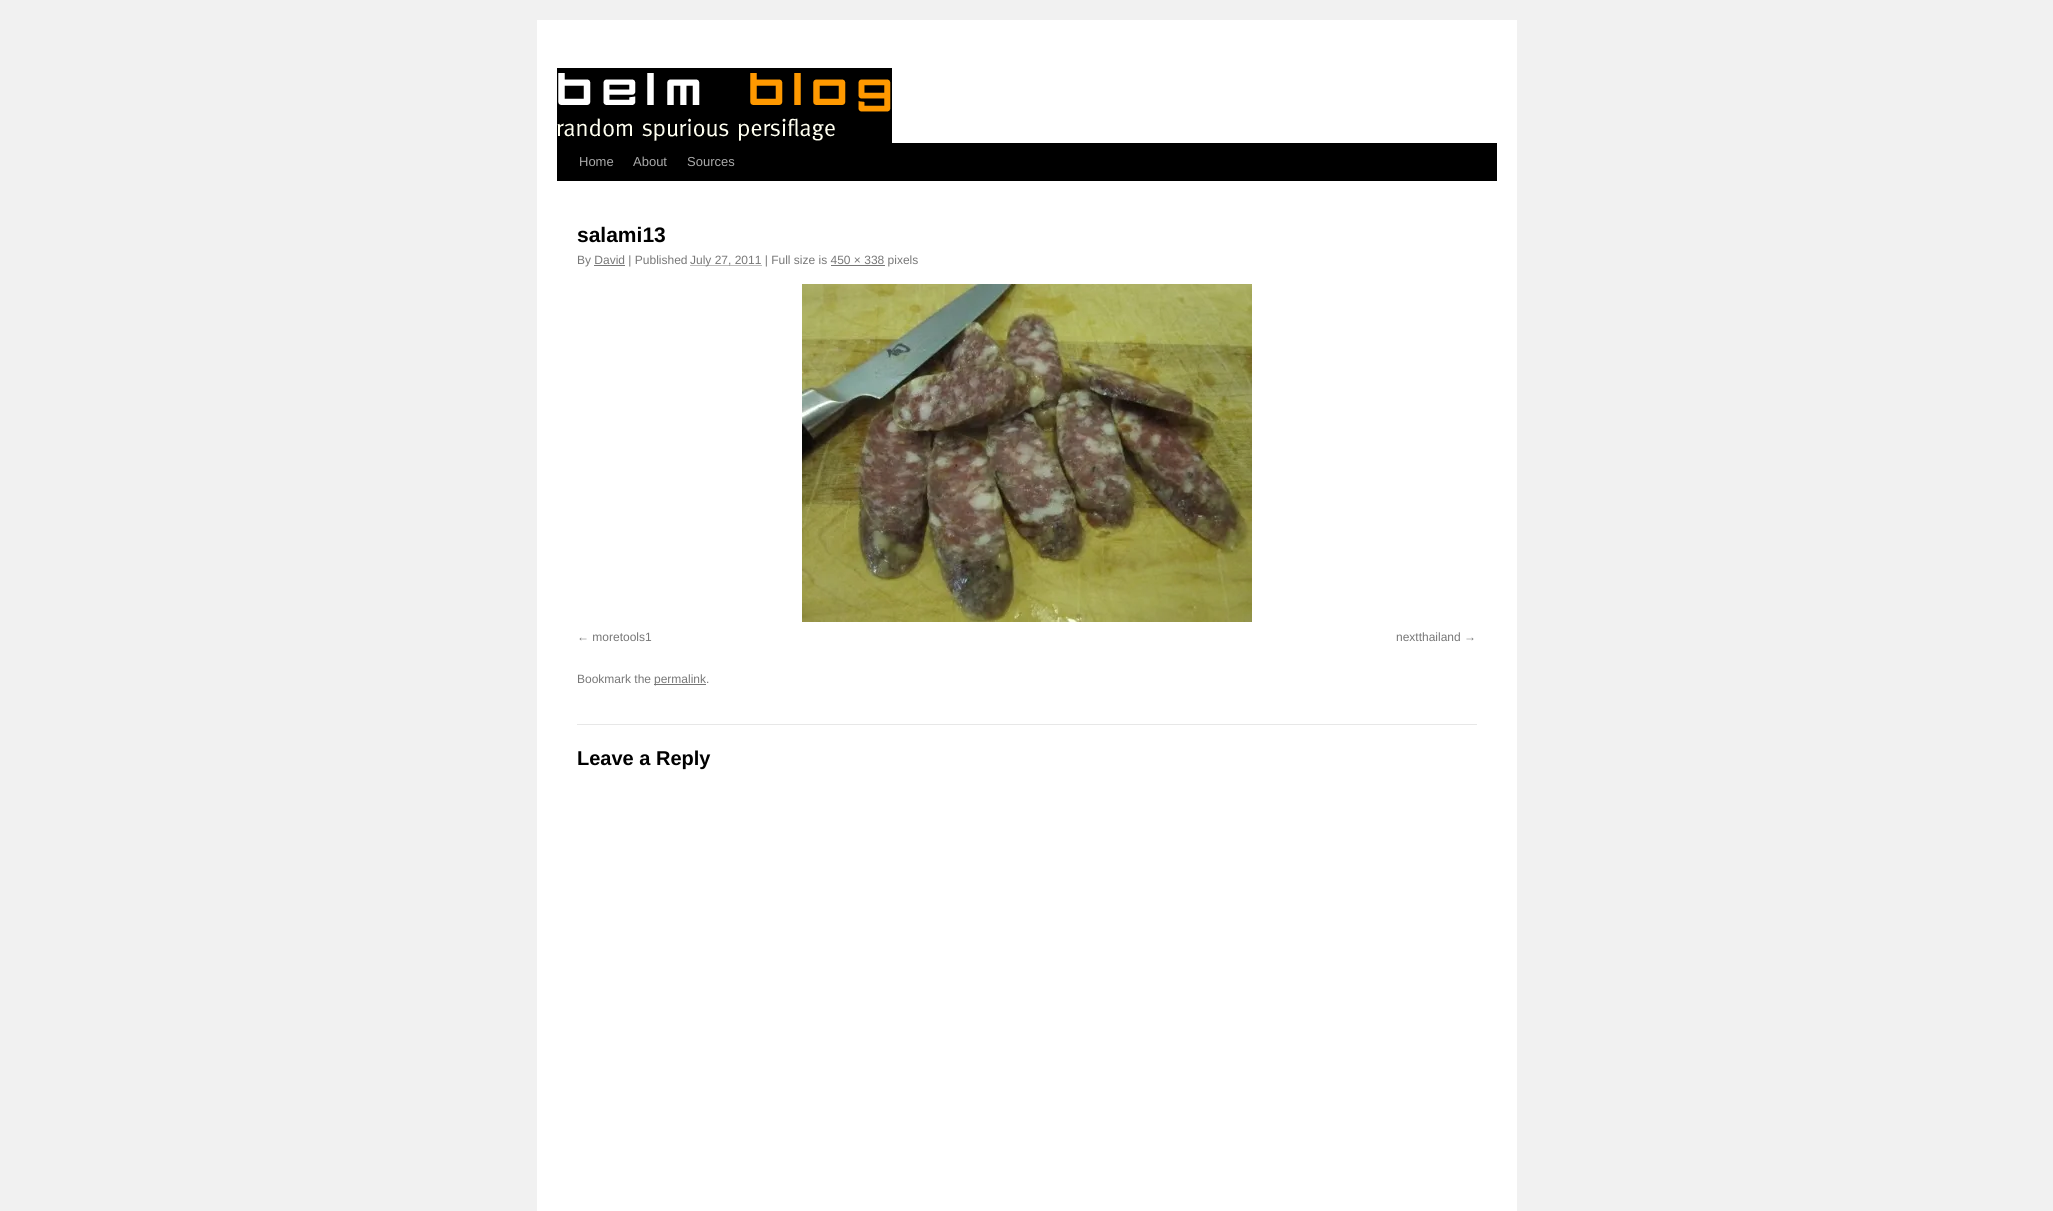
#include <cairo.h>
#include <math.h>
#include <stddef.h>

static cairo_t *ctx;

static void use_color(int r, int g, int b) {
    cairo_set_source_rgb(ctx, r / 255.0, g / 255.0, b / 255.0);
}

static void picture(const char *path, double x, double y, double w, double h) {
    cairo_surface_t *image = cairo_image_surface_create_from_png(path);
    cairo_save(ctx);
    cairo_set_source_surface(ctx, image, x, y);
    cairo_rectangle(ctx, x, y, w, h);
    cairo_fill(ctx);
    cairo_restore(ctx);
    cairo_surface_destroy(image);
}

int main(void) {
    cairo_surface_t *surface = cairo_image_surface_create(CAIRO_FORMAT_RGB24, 2053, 1211);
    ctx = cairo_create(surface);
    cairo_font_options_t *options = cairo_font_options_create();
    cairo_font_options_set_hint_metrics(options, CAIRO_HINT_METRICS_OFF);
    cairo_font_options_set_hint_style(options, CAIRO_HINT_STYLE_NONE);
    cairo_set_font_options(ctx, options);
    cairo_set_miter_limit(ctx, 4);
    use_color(241, 241, 241);
    cairo_paint(ctx);
    use_color(255, 255, 255);
    cairo_rectangle(ctx, 537, 20, 980, 1191);
    cairo_fill(ctx);
    use_color(0, 0, 0);
    cairo_rectangle(ctx, 557, 68, 335, 4);
    cairo_fill(ctx);
    cairo_rectangle(ctx, 557, 142, 335, 1);
    cairo_fill(ctx);
    picture("img1.png", 557, 72, 335, 70);
    cairo_rectangle(ctx, 557, 143, 940, 38);
    cairo_fill(ctx);
    cairo_select_font_face(ctx, "Liberation Sans", CAIRO_FONT_SLANT_NORMAL, CAIRO_FONT_WEIGHT_NORMAL);
    cairo_set_font_size(ctx, 13);
    use_color(170, 170, 170);
    cairo_move_to(ctx, 579, 166);
    cairo_show_text(ctx, "Home");
    cairo_move_to(ctx, 633, 166);
    cairo_show_text(ctx, "About");
    cairo_move_to(ctx, 687, 166);
    cairo_show_text(ctx, "Sources");
    cairo_select_font_face(ctx, "Liberation Sans", CAIRO_FONT_SLANT_NORMAL, CAIRO_FONT_WEIGHT_BOLD);
    cairo_set_font_size(ctx, 21);
    use_color(0, 0, 0);
    cairo_move_to(ctx, 577, 242);
    cairo_show_text(ctx, "salami13");
    cairo_select_font_face(ctx, "Liberation Sans", CAIRO_FONT_SLANT_NORMAL, CAIRO_FONT_WEIGHT_NORMAL);
    cairo_set_font_size(ctx, 12);
    use_color(119, 119, 119);
    cairo_move_to(ctx, 577, 264);
    cairo_show_text(ctx, "By David | Published");
    cairo_new_path(ctx);
    cairo_move_to(ctx, 690.5, 265.5);
    cairo_line_to(ctx, 762, 265.5);
    cairo_set_line_width(ctx, 1);
    cairo_set_dash(ctx, (double[]){1, 1}, 2, 0);
    cairo_stroke(ctx);
    cairo_move_to(ctx, 690, 264);
    cairo_show_text(ctx, "July 27, 2011 | Full size is 450 × 338 pixels");
    cairo_rectangle(ctx, 594, 265, 31, 1);
    cairo_fill(ctx);
    cairo_rectangle(ctx, 831, 265, 54, 1);
    cairo_fill(ctx);
    picture("img2.png", 802, 284, 450, 338);
    cairo_move_to(ctx, 577, 641);
    cairo_show_text(ctx, "← moretools1");
    cairo_move_to(ctx, 1396, 641);
    cairo_show_text(ctx, "nextthailand →");
    cairo_move_to(ctx, 577, 683);
    cairo_show_text(ctx, "Bookmark the");
    cairo_rectangle(ctx, 654, 684, 52, 1);
    cairo_fill(ctx);
    cairo_move_to(ctx, 654, 683);
    cairo_show_text(ctx, "permalink.");
    use_color(231, 231, 231);
    cairo_rectangle(ctx, 577, 724, 900, 1);
    cairo_fill(ctx);
    cairo_select_font_face(ctx, "Liberation Sans", CAIRO_FONT_SLANT_NORMAL, CAIRO_FONT_WEIGHT_BOLD);
    cairo_set_font_size(ctx, 20);
    use_color(0, 0, 0);
    cairo_move_to(ctx, 577, 765);
    cairo_show_text(ctx, "Leave a Reply");
    cairo_surface_write_to_png(surface, "result.png");
    cairo_font_options_destroy(options);
    cairo_destroy(ctx);
    cairo_surface_destroy(surface);
    return 0;
}
